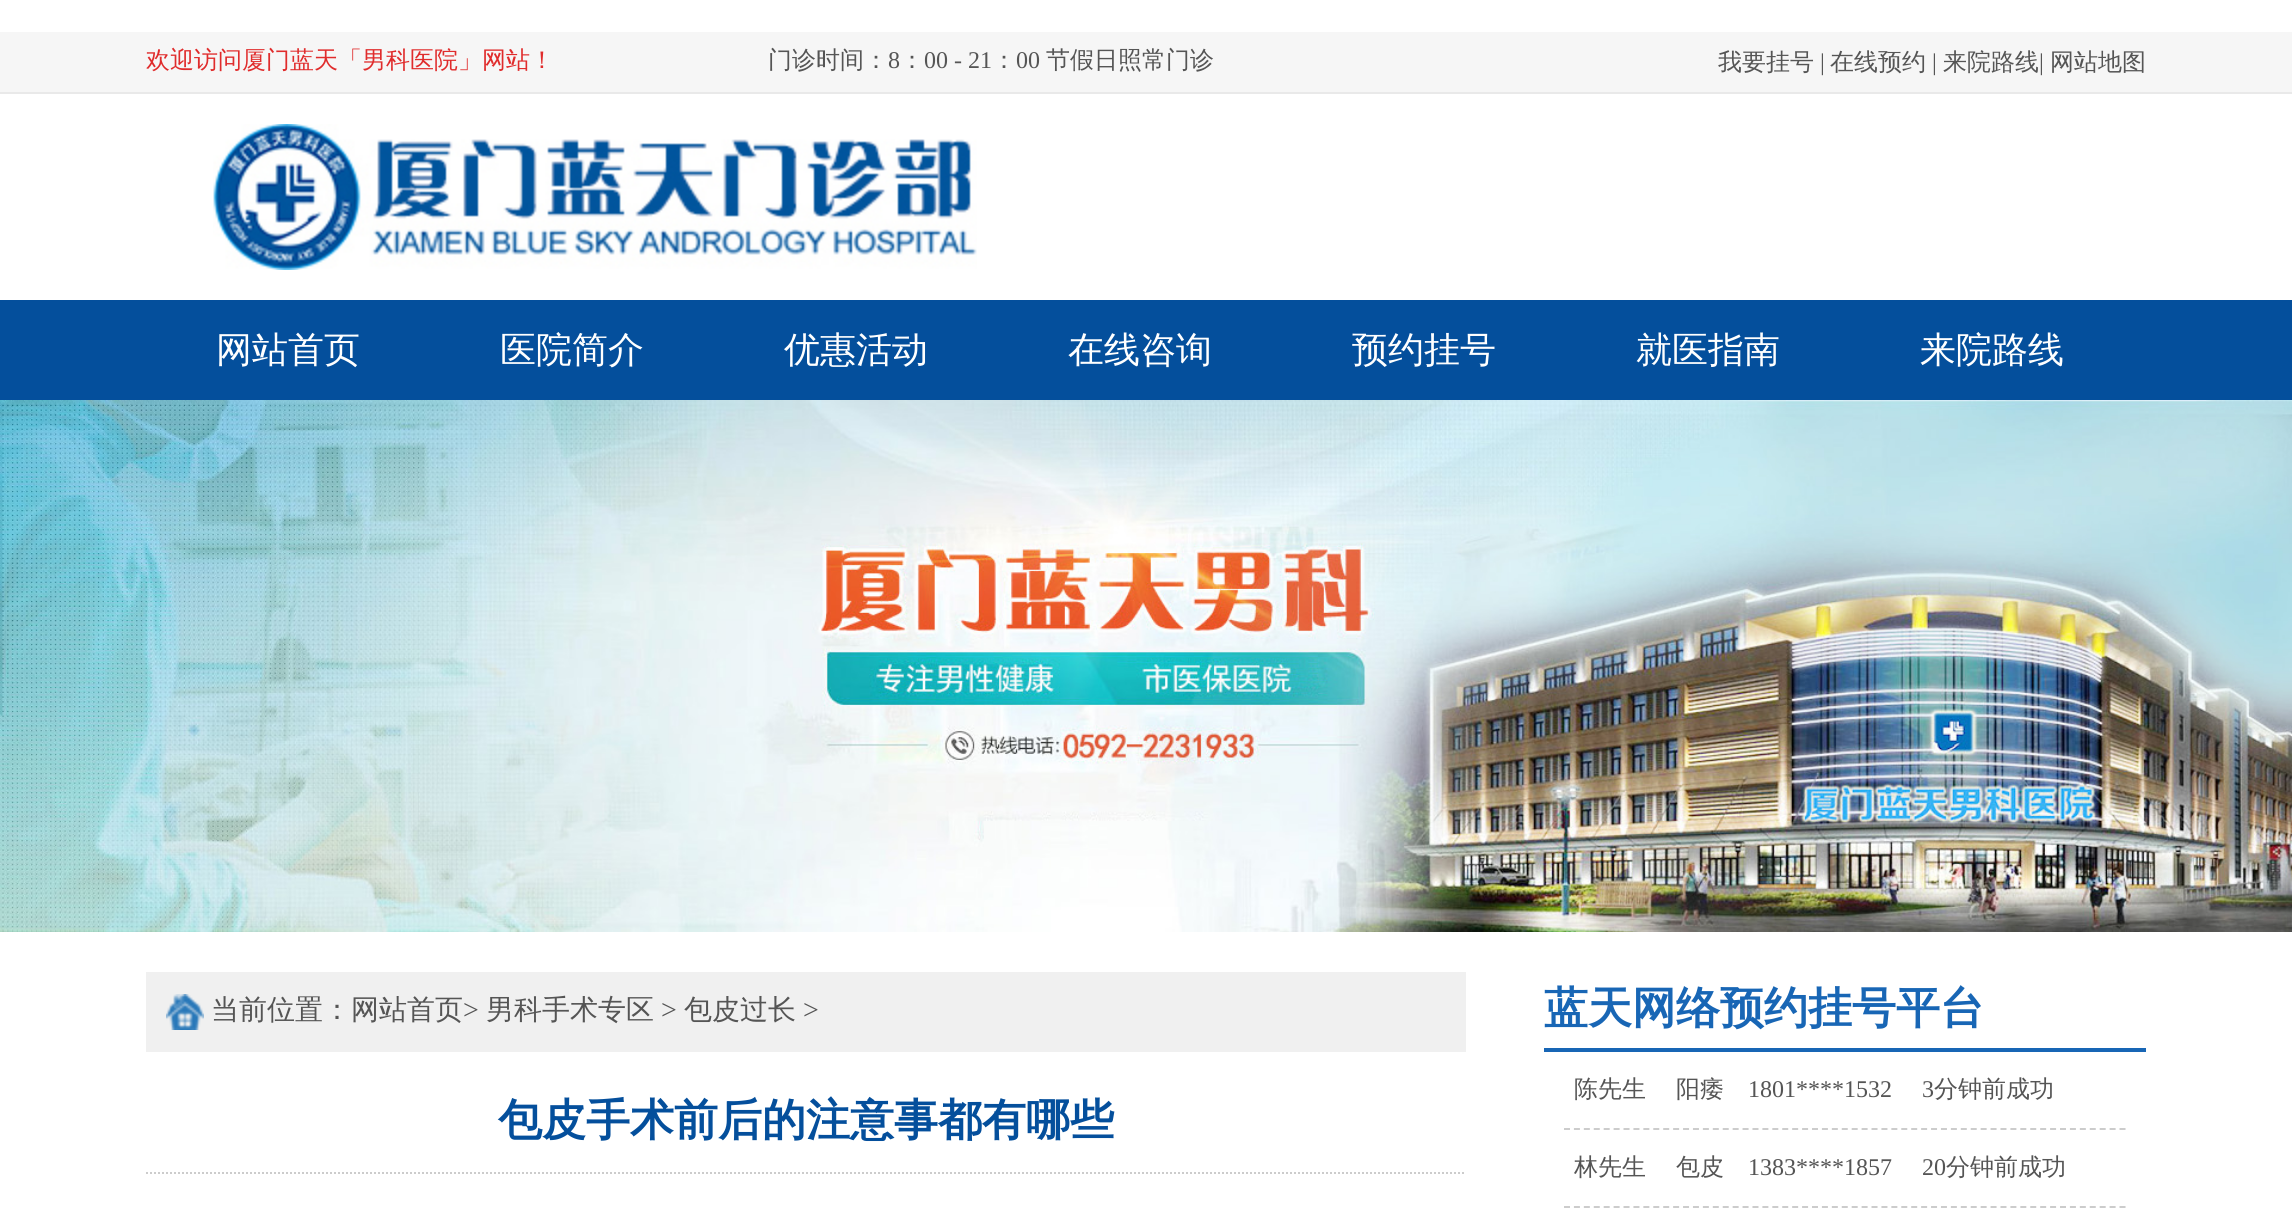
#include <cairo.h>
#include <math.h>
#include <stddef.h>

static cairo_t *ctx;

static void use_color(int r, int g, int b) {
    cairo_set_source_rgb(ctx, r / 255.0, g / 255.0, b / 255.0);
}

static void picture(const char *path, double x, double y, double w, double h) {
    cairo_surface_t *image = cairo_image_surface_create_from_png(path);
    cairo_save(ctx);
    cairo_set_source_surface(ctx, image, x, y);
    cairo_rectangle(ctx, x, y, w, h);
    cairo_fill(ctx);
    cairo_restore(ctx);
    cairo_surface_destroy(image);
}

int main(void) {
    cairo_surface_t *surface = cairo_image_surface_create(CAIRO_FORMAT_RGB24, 2292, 1210);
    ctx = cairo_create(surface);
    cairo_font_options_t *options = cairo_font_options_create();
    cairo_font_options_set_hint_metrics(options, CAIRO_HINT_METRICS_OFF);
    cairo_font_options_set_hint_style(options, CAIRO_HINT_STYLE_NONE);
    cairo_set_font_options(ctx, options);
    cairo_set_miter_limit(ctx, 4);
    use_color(255, 255, 255);
    cairo_paint(ctx);
    use_color(246, 246, 246);
    cairo_rectangle(ctx, 0, 32, 2292, 60);
    cairo_fill(ctx);
    use_color(233, 233, 233);
    cairo_rectangle(ctx, 0, 92, 2292, 2);
    cairo_fill(ctx);
    cairo_select_font_face(ctx, "WenQuanYi Zen Hei Medium", CAIRO_FONT_SLANT_NORMAL, CAIRO_FONT_WEIGHT_NORMAL);
    cairo_set_font_size(ctx, 24);
    use_color(224, 44, 44);
    cairo_move_to(ctx, 146, 68);
    cairo_show_text(ctx, "欢迎访问厦门蓝天「男科医院」网站！");
    use_color(85, 85, 85);
    cairo_move_to(ctx, 768, 68);
    cairo_show_text(ctx, "门诊时间：");
    cairo_select_font_face(ctx, "Liberation Serif", CAIRO_FONT_SLANT_NORMAL, CAIRO_FONT_WEIGHT_NORMAL);
    cairo_move_to(ctx, 888, 68);
    cairo_show_text(ctx, "8");
    cairo_select_font_face(ctx, "WenQuanYi Zen Hei Medium", CAIRO_FONT_SLANT_NORMAL, CAIRO_FONT_WEIGHT_NORMAL);
    cairo_move_to(ctx, 900, 68);
    cairo_show_text(ctx, "：");
    cairo_select_font_face(ctx, "Liberation Serif", CAIRO_FONT_SLANT_NORMAL, CAIRO_FONT_WEIGHT_NORMAL);
    cairo_move_to(ctx, 924, 68);
    cairo_show_text(ctx, "00 - 21");
    cairo_select_font_face(ctx, "WenQuanYi Zen Hei Medium", CAIRO_FONT_SLANT_NORMAL, CAIRO_FONT_WEIGHT_NORMAL);
    cairo_move_to(ctx, 992, 68);
    cairo_show_text(ctx, "：");
    cairo_select_font_face(ctx, "Liberation Serif", CAIRO_FONT_SLANT_NORMAL, CAIRO_FONT_WEIGHT_NORMAL);
    cairo_move_to(ctx, 1016, 68);
    cairo_show_text(ctx, "00");
    cairo_select_font_face(ctx, "WenQuanYi Zen Hei Medium", CAIRO_FONT_SLANT_NORMAL, CAIRO_FONT_WEIGHT_NORMAL);
    cairo_move_to(ctx, 1046, 68);
    cairo_show_text(ctx, "节假日照常门诊");
    cairo_move_to(ctx, 1718, 70);
    cairo_show_text(ctx, "我要挂号");
    cairo_select_font_face(ctx, "Liberation Serif", CAIRO_FONT_SLANT_NORMAL, CAIRO_FONT_WEIGHT_NORMAL);
    cairo_move_to(ctx, 1820, 70);
    cairo_show_text(ctx, "|");
    cairo_select_font_face(ctx, "WenQuanYi Zen Hei Medium", CAIRO_FONT_SLANT_NORMAL, CAIRO_FONT_WEIGHT_NORMAL);
    cairo_move_to(ctx, 1830, 70);
    cairo_show_text(ctx, "在线预约");
    cairo_select_font_face(ctx, "Liberation Serif", CAIRO_FONT_SLANT_NORMAL, CAIRO_FONT_WEIGHT_NORMAL);
    cairo_move_to(ctx, 1932, 70);
    cairo_show_text(ctx, "|");
    cairo_select_font_face(ctx, "WenQuanYi Zen Hei Medium", CAIRO_FONT_SLANT_NORMAL, CAIRO_FONT_WEIGHT_NORMAL);
    cairo_move_to(ctx, 1943, 70);
    cairo_show_text(ctx, "来院路线");
    cairo_select_font_face(ctx, "Liberation Serif", CAIRO_FONT_SLANT_NORMAL, CAIRO_FONT_WEIGHT_NORMAL);
    cairo_move_to(ctx, 2039, 70);
    cairo_show_text(ctx, "|");
    cairo_select_font_face(ctx, "WenQuanYi Zen Hei Medium", CAIRO_FONT_SLANT_NORMAL, CAIRO_FONT_WEIGHT_NORMAL);
    cairo_move_to(ctx, 2050, 70);
    cairo_show_text(ctx, "网站地图");
    picture("img1.png", 213, 124, 764, 146);
    use_color(4, 79, 156);
    cairo_rectangle(ctx, 0, 300, 2292, 100);
    cairo_fill(ctx);
    cairo_set_font_size(ctx, 36);
    use_color(255, 255, 255);
    cairo_move_to(ctx, 216, 362);
    cairo_show_text(ctx, "网站首页");
    cairo_move_to(ctx, 500, 362);
    cairo_show_text(ctx, "医院简介");
    cairo_move_to(ctx, 784, 362);
    cairo_show_text(ctx, "优惠活动");
    cairo_move_to(ctx, 1068, 362);
    cairo_show_text(ctx, "在线咨询");
    cairo_move_to(ctx, 1352, 362);
    cairo_show_text(ctx, "预约挂号");
    cairo_move_to(ctx, 1636, 362);
    cairo_show_text(ctx, "就医指南");
    cairo_move_to(ctx, 1920, 362);
    cairo_show_text(ctx, "来院路线");
    picture("img2.png", 0, 400, 2292, 532);
    use_color(240, 240, 240);
    cairo_rectangle(ctx, 146, 972, 1320, 80);
    cairo_fill(ctx);
    picture("img3.png", 166, 994, 38, 36);
    cairo_set_font_size(ctx, 28);
    use_color(85, 85, 85);
    cairo_move_to(ctx, 211, 1019);
    cairo_show_text(ctx, "当前位置：网站首页");
    cairo_select_font_face(ctx, "Liberation Serif", CAIRO_FONT_SLANT_NORMAL, CAIRO_FONT_WEIGHT_NORMAL);
    cairo_move_to(ctx, 463, 1019);
    cairo_show_text(ctx, ">");
    cairo_select_font_face(ctx, "WenQuanYi Zen Hei Medium", CAIRO_FONT_SLANT_NORMAL, CAIRO_FONT_WEIGHT_NORMAL);
    cairo_move_to(ctx, 486, 1019);
    cairo_show_text(ctx, "男科手术专区");
    cairo_select_font_face(ctx, "Liberation Serif", CAIRO_FONT_SLANT_NORMAL, CAIRO_FONT_WEIGHT_NORMAL);
    cairo_move_to(ctx, 661, 1019);
    cairo_show_text(ctx, ">");
    cairo_select_font_face(ctx, "WenQuanYi Zen Hei Medium", CAIRO_FONT_SLANT_NORMAL, CAIRO_FONT_WEIGHT_NORMAL);
    cairo_move_to(ctx, 684, 1019);
    cairo_show_text(ctx, "包皮过长");
    cairo_select_font_face(ctx, "Liberation Serif", CAIRO_FONT_SLANT_NORMAL, CAIRO_FONT_WEIGHT_NORMAL);
    cairo_move_to(ctx, 803, 1019);
    cairo_show_text(ctx, ">");
    cairo_new_path(ctx);
    cairo_move_to(ctx, 146, 1173);
    cairo_line_to(ctx, 1466, 1173);
    use_color(204, 204, 204);
    cairo_set_dash(ctx, (double[]){2, 2}, 2, 0);
    cairo_stroke(ctx);
    cairo_select_font_face(ctx, "WenQuanYi Zen Hei", CAIRO_FONT_SLANT_NORMAL, CAIRO_FONT_WEIGHT_BOLD);
    cairo_set_font_size(ctx, 44);
    use_color(4, 79, 156);
    cairo_move_to(ctx, 498, 1135);
    cairo_show_text(ctx, "包皮手术前后的注意事都有哪些");
    use_color(24, 102, 181);
    cairo_rectangle(ctx, 1544, 1048, 602, 4);
    cairo_fill(ctx);
    cairo_move_to(ctx, 1544, 1023);
    cairo_show_text(ctx, "蓝天网络预约挂号平台");
    cairo_new_path(ctx);
    cairo_move_to(ctx, 1564, 1129);
    cairo_line_to(ctx, 2126, 1129);
    use_color(204, 204, 204);
    cairo_set_dash(ctx, (double[]){6, 3.92}, 2, 0);
    cairo_stroke(ctx);
    cairo_select_font_face(ctx, "WenQuanYi Zen Hei Medium", CAIRO_FONT_SLANT_NORMAL, CAIRO_FONT_WEIGHT_NORMAL);
    cairo_set_font_size(ctx, 24);
    use_color(85, 85, 85);
    cairo_move_to(ctx, 1574, 1097);
    cairo_show_text(ctx, "陈先生");
    cairo_move_to(ctx, 1676, 1097);
    cairo_show_text(ctx, "阳痿");
    cairo_select_font_face(ctx, "Liberation Serif", CAIRO_FONT_SLANT_NORMAL, CAIRO_FONT_WEIGHT_NORMAL);
    cairo_move_to(ctx, 1748, 1097);
    cairo_show_text(ctx, "1801****1532");
    cairo_move_to(ctx, 1922, 1097);
    cairo_show_text(ctx, "3");
    cairo_select_font_face(ctx, "WenQuanYi Zen Hei Medium", CAIRO_FONT_SLANT_NORMAL, CAIRO_FONT_WEIGHT_NORMAL);
    cairo_move_to(ctx, 1934, 1097);
    cairo_show_text(ctx, "分钟前成功");
    cairo_new_path(ctx);
    cairo_move_to(ctx, 1564, 1207);
    cairo_line_to(ctx, 2126, 1207);
    use_color(204, 204, 204);
    cairo_stroke(ctx);
    use_color(85, 85, 85);
    cairo_move_to(ctx, 1574, 1175);
    cairo_show_text(ctx, "林先生");
    cairo_move_to(ctx, 1676, 1175);
    cairo_show_text(ctx, "包皮");
    cairo_select_font_face(ctx, "Liberation Serif", CAIRO_FONT_SLANT_NORMAL, CAIRO_FONT_WEIGHT_NORMAL);
    cairo_move_to(ctx, 1748, 1175);
    cairo_show_text(ctx, "1383****1857");
    cairo_move_to(ctx, 1922, 1175);
    cairo_show_text(ctx, "20");
    cairo_select_font_face(ctx, "WenQuanYi Zen Hei Medium", CAIRO_FONT_SLANT_NORMAL, CAIRO_FONT_WEIGHT_NORMAL);
    cairo_move_to(ctx, 1946, 1175);
    cairo_show_text(ctx, "分钟前成功");
    cairo_surface_write_to_png(surface, "result.png");
    cairo_font_options_destroy(options);
    cairo_destroy(ctx);
    cairo_surface_destroy(surface);
    return 0;
}
